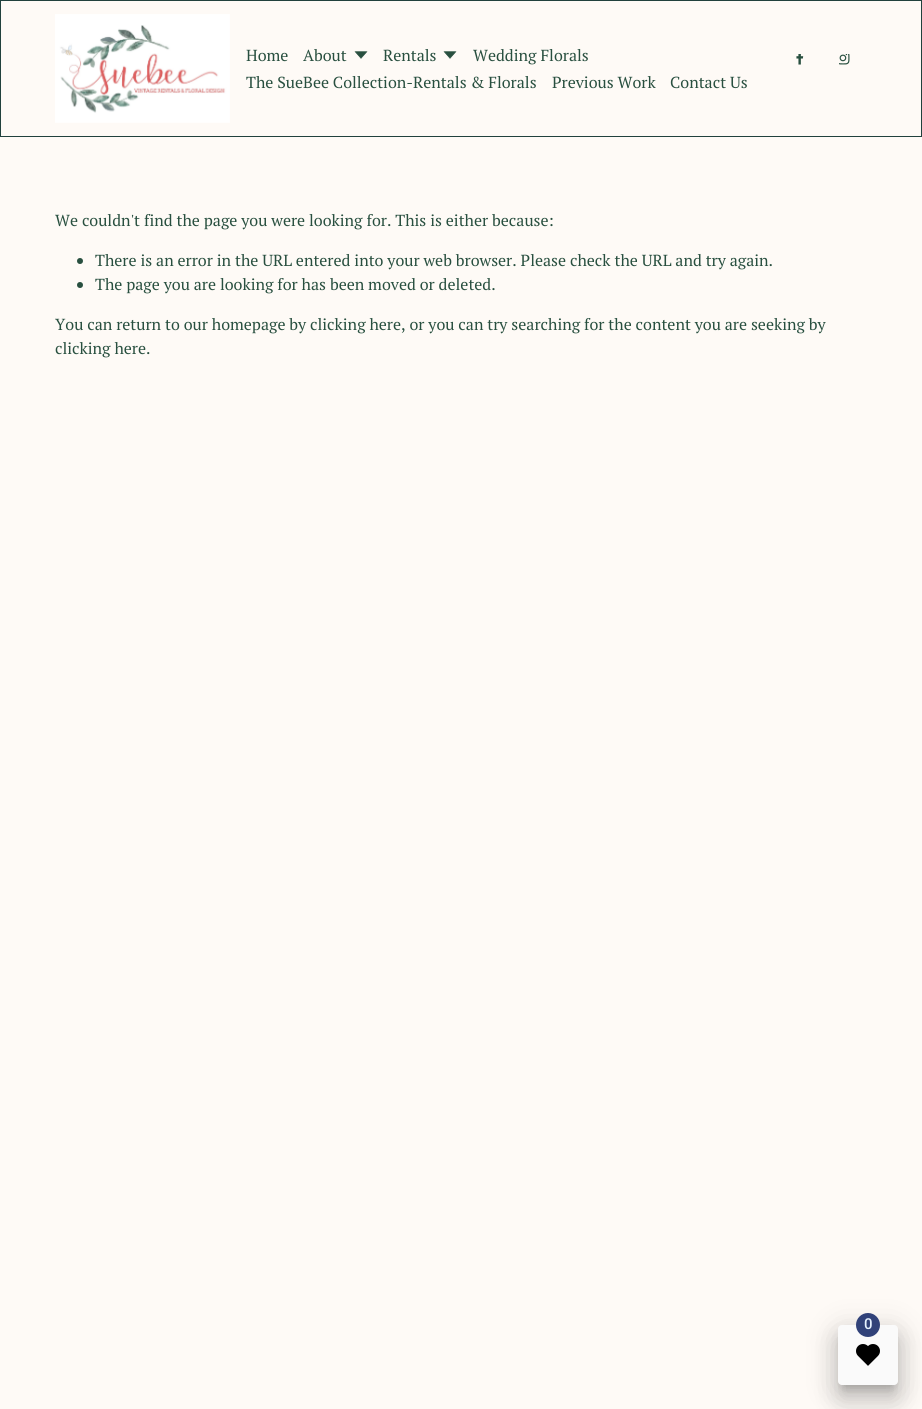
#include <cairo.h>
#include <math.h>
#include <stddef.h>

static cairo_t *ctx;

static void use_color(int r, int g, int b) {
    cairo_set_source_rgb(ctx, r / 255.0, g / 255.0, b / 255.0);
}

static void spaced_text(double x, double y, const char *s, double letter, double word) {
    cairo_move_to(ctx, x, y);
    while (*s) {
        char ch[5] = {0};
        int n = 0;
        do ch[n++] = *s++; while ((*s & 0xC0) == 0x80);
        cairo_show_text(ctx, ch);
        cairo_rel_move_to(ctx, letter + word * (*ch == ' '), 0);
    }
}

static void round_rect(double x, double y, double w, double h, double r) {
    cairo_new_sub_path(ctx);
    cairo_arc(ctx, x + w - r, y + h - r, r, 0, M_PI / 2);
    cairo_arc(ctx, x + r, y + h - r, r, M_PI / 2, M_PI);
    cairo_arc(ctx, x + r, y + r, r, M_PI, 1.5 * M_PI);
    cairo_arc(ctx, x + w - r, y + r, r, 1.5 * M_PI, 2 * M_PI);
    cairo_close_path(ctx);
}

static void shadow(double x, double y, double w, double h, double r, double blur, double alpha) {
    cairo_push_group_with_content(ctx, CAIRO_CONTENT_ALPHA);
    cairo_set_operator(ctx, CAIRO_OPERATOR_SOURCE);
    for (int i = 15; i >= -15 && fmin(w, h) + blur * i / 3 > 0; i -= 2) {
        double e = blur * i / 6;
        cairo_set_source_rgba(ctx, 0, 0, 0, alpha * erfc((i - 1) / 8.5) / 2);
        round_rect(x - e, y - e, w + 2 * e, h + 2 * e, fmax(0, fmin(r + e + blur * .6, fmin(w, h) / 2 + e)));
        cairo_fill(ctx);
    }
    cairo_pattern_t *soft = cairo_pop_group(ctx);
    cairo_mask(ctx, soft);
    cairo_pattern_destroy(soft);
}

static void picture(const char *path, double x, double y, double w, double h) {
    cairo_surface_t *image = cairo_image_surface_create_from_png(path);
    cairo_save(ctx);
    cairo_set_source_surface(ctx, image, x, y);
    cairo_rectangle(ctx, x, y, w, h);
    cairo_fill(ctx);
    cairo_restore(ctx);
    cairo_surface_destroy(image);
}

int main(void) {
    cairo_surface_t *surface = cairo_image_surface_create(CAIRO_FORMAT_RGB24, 922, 1409);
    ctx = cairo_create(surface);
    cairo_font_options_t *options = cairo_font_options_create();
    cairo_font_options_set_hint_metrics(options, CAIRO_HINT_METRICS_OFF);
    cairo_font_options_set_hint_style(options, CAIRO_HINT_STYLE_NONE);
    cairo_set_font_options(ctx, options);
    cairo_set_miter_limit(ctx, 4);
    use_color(254, 250, 246);
    cairo_paint(ctx);
    cairo_rectangle(ctx, 0.5, 0.5, 921, 136);
    use_color(33, 65, 61);
    cairo_set_line_width(ctx, 1);
    cairo_stroke(ctx);
    picture("img1.png", 55, 14, 175, 109);
    cairo_select_font_face(ctx, "PT Serif", CAIRO_FONT_SLANT_NORMAL, CAIRO_FONT_WEIGHT_NORMAL);
    cairo_set_font_size(ctx, 16);
    use_color(40, 79, 63);
    cairo_move_to(ctx, 246, 61);
    cairo_show_text(ctx, "Home");
    cairo_move_to(ctx, 303, 61);
    cairo_show_text(ctx, "About");
    picture("img2.png", 354, 51, 14, 8);
    cairo_move_to(ctx, 383, 61);
    cairo_show_text(ctx, "Rentals");
    picture("img2.png", 443, 51, 14, 8);
    cairo_move_to(ctx, 473, 61);
    cairo_show_text(ctx, "Wedding Florals");
    cairo_move_to(ctx, 246, 88);
    cairo_show_text(ctx, "The SueBee Collection-Rentals & Florals");
    cairo_move_to(ctx, 552, 88);
    cairo_show_text(ctx, "Previous Work");
    cairo_move_to(ctx, 670, 88);
    cairo_show_text(ctx, "Contact Us");
    picture("img3.png", 796, 54, 8, 11);
    picture("img4.png", 839, 54, 11, 11);
    cairo_move_to(ctx, 55, 226);
    cairo_show_text(ctx, "We couldn't find the page you were looking for. This is either because:");
    cairo_new_path(ctx);
    cairo_arc(ctx, 80, 261, 3, 0, 2 * M_PI);
    cairo_fill(ctx);
    cairo_move_to(ctx, 95, 266);
    cairo_show_text(ctx, "There is an error in the URL entered into your web browser. Please check the URL and try again.");
    cairo_new_path(ctx);
    cairo_arc(ctx, 80, 285, 3, 0, 2 * M_PI);
    cairo_fill(ctx);
    cairo_move_to(ctx, 95, 290);
    cairo_show_text(ctx, "The page you are looking for has been moved or deleted.");
    cairo_move_to(ctx, 55, 330);
    cairo_show_text(ctx, "You can return to our homepage by clicking here, or you can try searching for the content you are seeking by");
    cairo_move_to(ctx, 55, 354);
    cairo_show_text(ctx, "clicking here.");
    use_color(0, 0, 0);
    shadow(843, 1338, 50, 50, 0, 5, 0.2);
    shadow(833, 1326, 70, 70, 9, 15, 0.12);
    shadow(836, 1339, 64, 64, 6, 12, 0.14);
    use_color(250, 250, 250);
    round_rect(838, 1325, 60, 60, 4);
    cairo_fill(ctx);
    use_color(49, 66, 121);
    cairo_arc(ctx, 868, 1325, 12, 0, 2 * M_PI);
    cairo_fill(ctx);
    cairo_select_font_face(ctx, "Roboto Medium", CAIRO_FONT_SLANT_NORMAL, CAIRO_FONT_WEIGHT_NORMAL);
    cairo_set_font_size(ctx, 15);
    use_color(230, 242, 255);
    spaced_text(864, 1329, "0", -1, 0);
    picture("img5.png", 856, 1344, 24, 22);
    cairo_surface_write_to_png(surface, "result.png");
    cairo_font_options_destroy(options);
    cairo_destroy(ctx);
    cairo_surface_destroy(surface);
    return 0;
}
